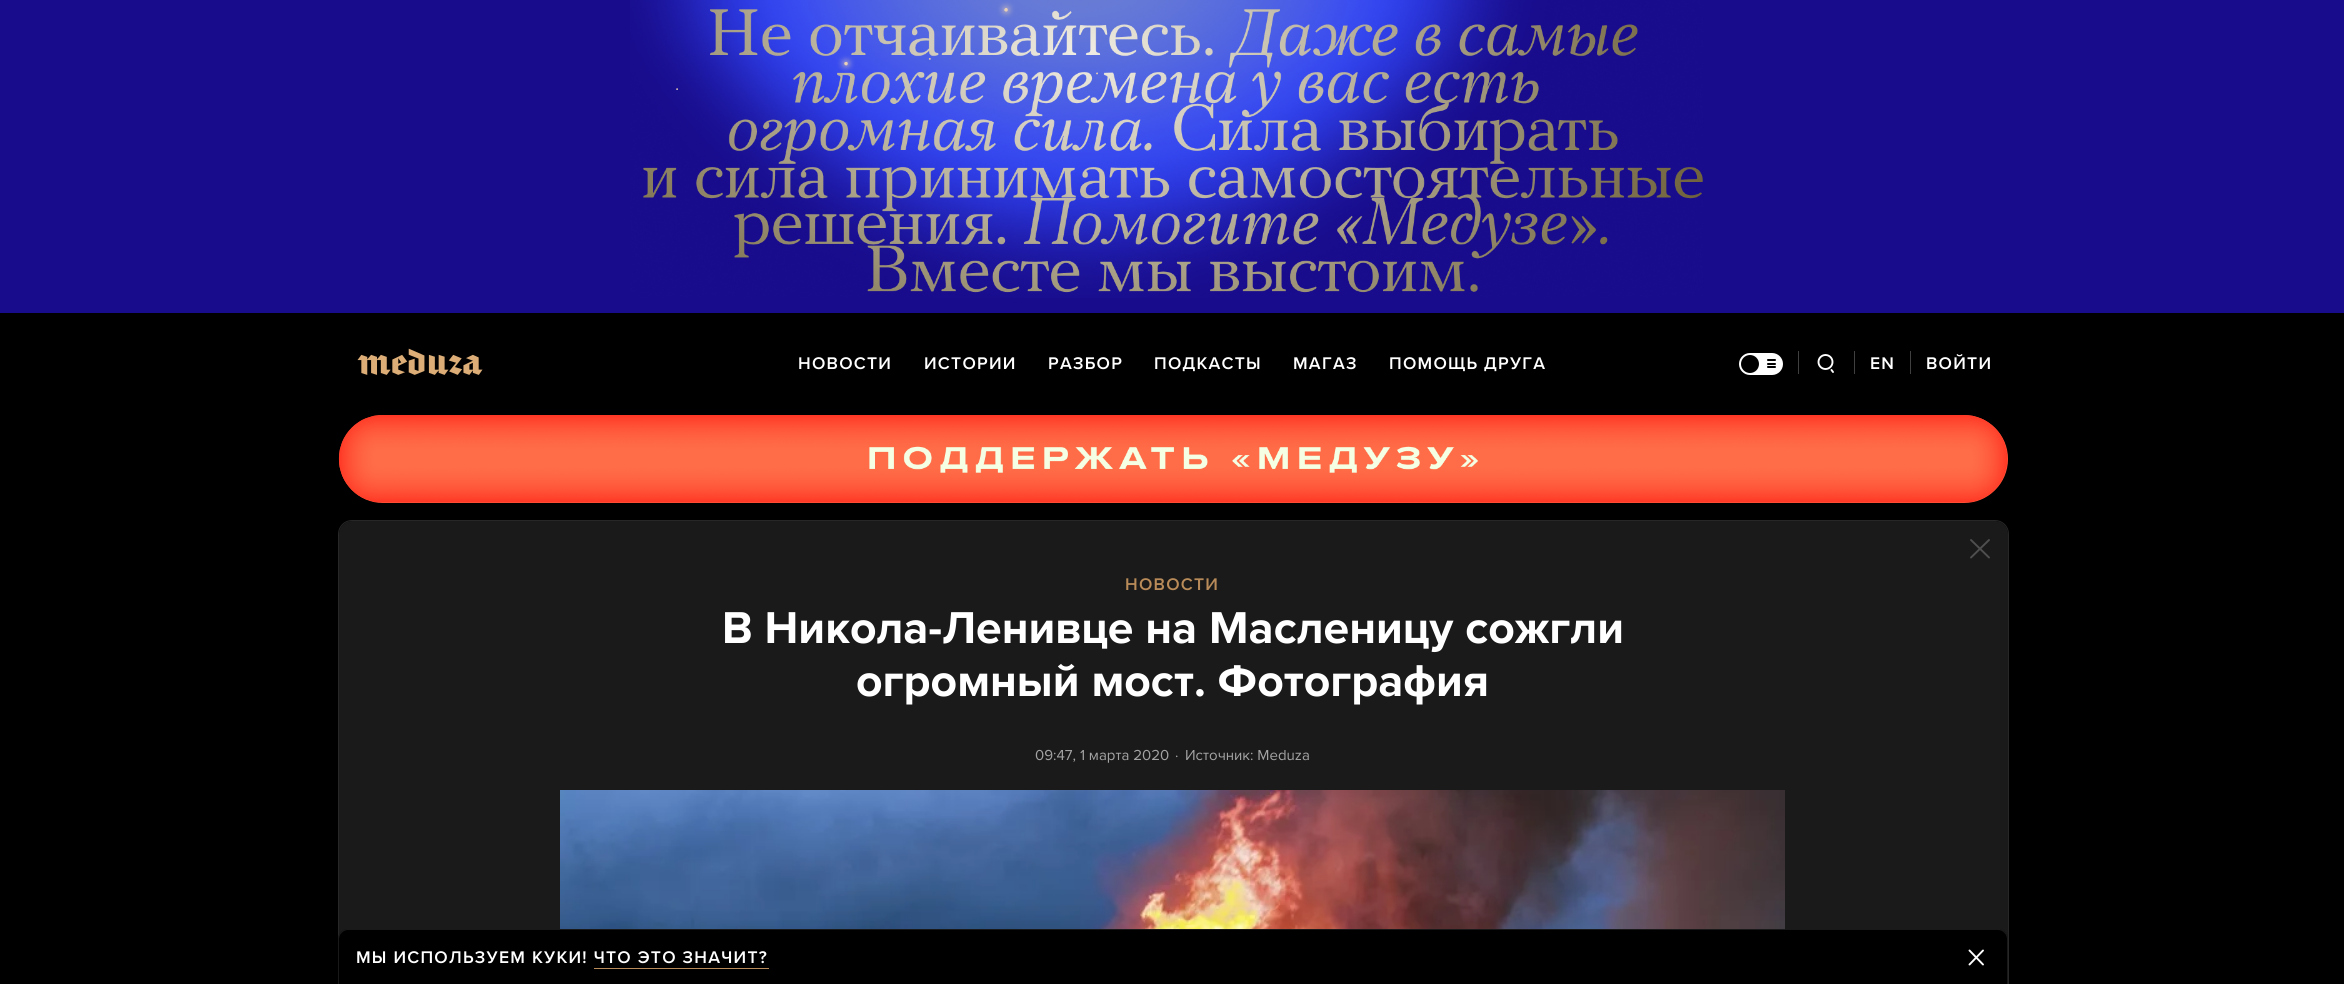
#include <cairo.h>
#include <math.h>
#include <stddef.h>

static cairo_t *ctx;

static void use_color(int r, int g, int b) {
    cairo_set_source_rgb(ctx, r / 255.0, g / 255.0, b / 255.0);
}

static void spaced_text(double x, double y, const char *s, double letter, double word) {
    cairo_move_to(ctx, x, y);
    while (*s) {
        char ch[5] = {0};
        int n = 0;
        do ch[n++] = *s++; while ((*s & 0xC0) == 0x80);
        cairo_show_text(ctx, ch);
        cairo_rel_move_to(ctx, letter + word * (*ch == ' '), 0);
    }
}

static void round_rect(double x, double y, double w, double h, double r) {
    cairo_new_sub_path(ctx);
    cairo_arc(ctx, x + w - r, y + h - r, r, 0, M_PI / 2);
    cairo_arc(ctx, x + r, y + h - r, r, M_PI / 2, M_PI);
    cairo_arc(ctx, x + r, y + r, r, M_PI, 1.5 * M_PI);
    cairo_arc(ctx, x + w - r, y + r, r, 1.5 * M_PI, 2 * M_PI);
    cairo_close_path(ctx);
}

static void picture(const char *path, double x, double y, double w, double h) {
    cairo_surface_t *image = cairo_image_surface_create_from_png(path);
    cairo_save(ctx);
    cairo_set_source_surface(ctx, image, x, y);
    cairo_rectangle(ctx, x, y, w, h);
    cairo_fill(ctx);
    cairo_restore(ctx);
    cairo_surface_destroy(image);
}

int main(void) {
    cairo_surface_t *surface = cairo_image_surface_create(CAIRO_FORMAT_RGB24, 2344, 984);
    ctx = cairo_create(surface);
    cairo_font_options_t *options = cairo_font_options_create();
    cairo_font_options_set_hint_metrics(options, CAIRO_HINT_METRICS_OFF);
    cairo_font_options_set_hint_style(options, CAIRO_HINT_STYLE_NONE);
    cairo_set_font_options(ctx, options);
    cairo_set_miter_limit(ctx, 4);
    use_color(0, 0, 0);
    cairo_paint(ctx);
    use_color(25, 12, 140);
    cairo_rectangle(ctx, 0, 0, 2344, 313);
    cairo_fill(ctx);
    picture("img1.png", 630, 0, 1073, 298);
    picture("img2.png", 357, 348, 126, 27);
    cairo_select_font_face(ctx, "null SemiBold", CAIRO_FONT_SLANT_NORMAL, CAIRO_FONT_WEIGHT_NORMAL);
    cairo_set_font_size(ctx, 17.5);
    use_color(255, 255, 255);
    spaced_text(798, 369, "НОВОСТИ", 1.25, 0);
    spaced_text(924, 369, "ИСТОРИИ", 1.25, 0);
    spaced_text(1048, 369, "РАЗБОР", 1.25, 0);
    spaced_text(1154, 369, "ПОДКАСТЫ", 1.25, 0);
    spaced_text(1293, 369, "МАГАЗ", 1.25, 0);
    spaced_text(1389, 369, "ПОМОЩЬ ДРУГА", 1.25, 0);
    round_rect(1739, 353, 44, 22, 11);
    cairo_fill(ctx);
    use_color(0, 0, 0);
    cairo_arc(ctx, 1750, 364, 9, 0, 2 * M_PI);
    cairo_fill(ctx);
    round_rect(1767, 359, 9, 2, 1);
    cairo_fill(ctx);
    round_rect(1767, 363, 9, 2, 1);
    cairo_fill(ctx);
    round_rect(1767, 366, 9, 2, 1);
    cairo_fill(ctx);
    use_color(64, 64, 64);
    cairo_rectangle(ctx, 1798, 351, 1, 23);
    cairo_fill(ctx);
    cairo_arc(ctx, 1825.5, 362, 7, 0, 2 * M_PI);
    use_color(255, 255, 255);
    cairo_set_line_width(ctx, 1.9);
    cairo_stroke(ctx);
    cairo_new_path(ctx);
    cairo_move_to(ctx, 1833, 372);
    cairo_line_to(ctx, 1831.5, 370);
    cairo_set_line_cap(ctx, CAIRO_LINE_CAP_ROUND);
    cairo_set_line_join(ctx, CAIRO_LINE_JOIN_ROUND);
    cairo_stroke(ctx);
    use_color(64, 64, 64);
    cairo_rectangle(ctx, 1854, 351, 1, 23);
    cairo_fill(ctx);
    use_color(255, 255, 255);
    spaced_text(1870, 369, "EN", 1.25, 0);
    use_color(64, 64, 64);
    cairo_rectangle(ctx, 1910, 351, 1, 23);
    cairo_fill(ctx);
    use_color(255, 255, 255);
    spaced_text(1926, 369, "ВОЙТИ", 1.25, 0);
    use_color(255, 83, 56);
    round_rect(339, 415, 1669, 88, 44);
    cairo_fill(ctx);
    picture("img3.png", 338, 415, 1670, 88);
    round_rect(338.5, 520.5, 1670, 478, 13.5);
    use_color(39, 39, 39);
    cairo_set_line_width(ctx, 1);
    cairo_set_line_cap(ctx, CAIRO_LINE_CAP_BUTT);
    cairo_set_line_join(ctx, CAIRO_LINE_JOIN_MITER);
    cairo_stroke(ctx);
    use_color(26, 26, 26);
    round_rect(339, 521, 1669, 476, 13);
    cairo_fill(ctx);
    cairo_new_path(ctx);
    cairo_move_to(ctx, 1971, 540);
    cairo_line_to(ctx, 1989, 557.5);
    cairo_move_to(ctx, 1989, 540);
    cairo_line_to(ctx, 1971, 557.5);
    use_color(79, 79, 79);
    cairo_set_line_width(ctx, 1.9);
    cairo_set_line_cap(ctx, CAIRO_LINE_CAP_ROUND);
    cairo_set_line_join(ctx, CAIRO_LINE_JOIN_ROUND);
    cairo_stroke(ctx);
    use_color(184, 139, 89);
    spaced_text(1125, 590, "НОВОСТИ", 1.25, 0);
    cairo_select_font_face(ctx, "null", CAIRO_FONT_SLANT_NORMAL, CAIRO_FONT_WEIGHT_BOLD);
    cairo_set_font_size(ctx, 46.25);
    use_color(255, 255, 255);
    cairo_move_to(ctx, 722, 643);
    cairo_show_text(ctx, "В Никола-Ленивце на Масленицу сожгли");
    cairo_move_to(ctx, 856, 696);
    cairo_show_text(ctx, "огромный мост. Фотография");
    cairo_select_font_face(ctx, "null", CAIRO_FONT_SLANT_NORMAL, CAIRO_FONT_WEIGHT_NORMAL);
    cairo_set_font_size(ctx, 15);
    use_color(163, 163, 163);
    cairo_move_to(ctx, 1035, 760);
    cairo_show_text(ctx, "09:47, 1 марта 2020");
    cairo_move_to(ctx, 1175, 760);
    cairo_show_text(ctx, "·");
    cairo_move_to(ctx, 1185, 760);
    cairo_show_text(ctx, "Источник: Meduza");
    picture("img4.png", 560, 790, 1225, 139);
    use_color(0, 0, 0);
    cairo_new_path(ctx);
    cairo_move_to(ctx, 348, 929);
    cairo_line_to(ctx, 1998, 929);
    cairo_curve_to(ctx, 2003.5, 929, 2008, 933.5, 2008, 939);
    cairo_line_to(ctx, 2008, 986);
    cairo_line_to(ctx, 338, 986);
    cairo_line_to(ctx, 338, 939);
    cairo_curve_to(ctx, 338, 933.5, 342.5, 929, 348, 929);
    cairo_close_path(ctx);
    cairo_fill(ctx);
    cairo_new_path(ctx);
    cairo_move_to(ctx, 348, 929.5);
    cairo_line_to(ctx, 1998, 929.5);
    cairo_curve_to(ctx, 2003, 929.5, 2007.5, 934, 2007.5, 939);
    cairo_line_to(ctx, 2007.5, 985.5);
    cairo_line_to(ctx, 338.5, 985.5);
    cairo_line_to(ctx, 338.5, 939);
    cairo_curve_to(ctx, 338.5, 934, 343, 929.5, 348, 929.5);
    cairo_close_path(ctx);
    cairo_set_source_rgba(ctx, 1, 1, 1, 0.1);
    cairo_set_line_width(ctx, 1);
    cairo_set_line_cap(ctx, CAIRO_LINE_CAP_BUTT);
    cairo_set_line_join(ctx, CAIRO_LINE_JOIN_MITER);
    cairo_stroke(ctx);
    cairo_select_font_face(ctx, "null SemiBold", CAIRO_FONT_SLANT_NORMAL, CAIRO_FONT_WEIGHT_NORMAL);
    cairo_set_font_size(ctx, 17.5);
    use_color(255, 255, 255);
    spaced_text(356, 963, "МЫ ИСПОЛЬЗУЕМ КУКИ! ЧТО ЭТО ЗНАЧИТ?", 1.25, 0);
    use_color(184, 139, 88);
    cairo_rectangle(ctx, 594, 968, 175, 1);
    cairo_fill(ctx);
    cairo_new_path(ctx);
    cairo_move_to(ctx, 1969.5, 950.5);
    cairo_line_to(ctx, 1983, 964.5);
    cairo_move_to(ctx, 1983, 950.5);
    cairo_line_to(ctx, 1969.5, 964.5);
    use_color(255, 255, 255);
    cairo_set_line_width(ctx, 1.9);
    cairo_set_line_cap(ctx, CAIRO_LINE_CAP_ROUND);
    cairo_set_line_join(ctx, CAIRO_LINE_JOIN_ROUND);
    cairo_stroke(ctx);
    cairo_surface_write_to_png(surface, "result.png");
    cairo_font_options_destroy(options);
    cairo_destroy(ctx);
    cairo_surface_destroy(surface);
    return 0;
}
